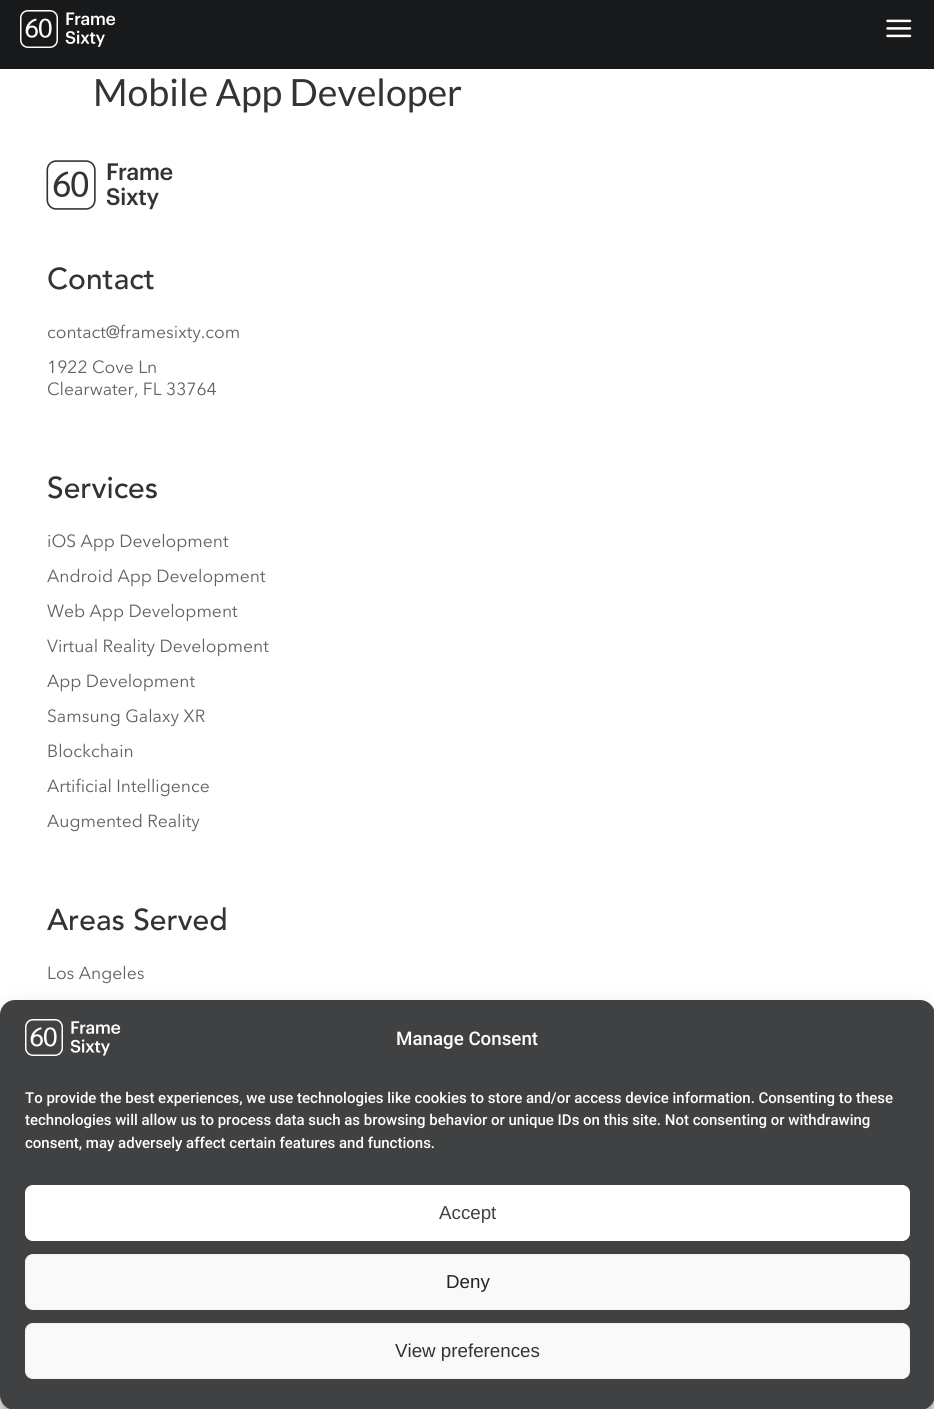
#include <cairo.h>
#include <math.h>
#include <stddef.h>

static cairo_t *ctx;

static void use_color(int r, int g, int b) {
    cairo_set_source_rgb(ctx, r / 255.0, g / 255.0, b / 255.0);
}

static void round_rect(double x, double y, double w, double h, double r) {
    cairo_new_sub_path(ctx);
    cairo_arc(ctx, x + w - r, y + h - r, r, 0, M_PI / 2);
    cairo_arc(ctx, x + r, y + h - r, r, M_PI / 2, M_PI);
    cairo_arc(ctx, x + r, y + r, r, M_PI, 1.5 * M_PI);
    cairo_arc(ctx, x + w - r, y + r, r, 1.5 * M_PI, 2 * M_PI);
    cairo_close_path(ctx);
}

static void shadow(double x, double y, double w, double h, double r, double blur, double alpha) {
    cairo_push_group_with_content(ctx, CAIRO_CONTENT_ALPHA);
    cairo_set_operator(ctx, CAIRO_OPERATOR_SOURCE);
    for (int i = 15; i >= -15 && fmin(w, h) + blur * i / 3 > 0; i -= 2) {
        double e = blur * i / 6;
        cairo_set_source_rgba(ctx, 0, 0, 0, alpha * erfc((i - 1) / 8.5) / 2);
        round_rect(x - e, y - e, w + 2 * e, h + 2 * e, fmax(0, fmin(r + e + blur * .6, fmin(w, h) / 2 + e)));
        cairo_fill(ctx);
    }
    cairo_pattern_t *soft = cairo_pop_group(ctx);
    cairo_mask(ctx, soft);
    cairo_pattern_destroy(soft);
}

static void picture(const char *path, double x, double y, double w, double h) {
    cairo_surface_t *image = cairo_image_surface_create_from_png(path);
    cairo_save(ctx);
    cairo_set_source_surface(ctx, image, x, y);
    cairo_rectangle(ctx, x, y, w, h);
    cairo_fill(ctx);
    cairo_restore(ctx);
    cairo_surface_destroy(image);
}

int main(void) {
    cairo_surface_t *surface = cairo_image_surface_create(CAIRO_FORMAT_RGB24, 934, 1409);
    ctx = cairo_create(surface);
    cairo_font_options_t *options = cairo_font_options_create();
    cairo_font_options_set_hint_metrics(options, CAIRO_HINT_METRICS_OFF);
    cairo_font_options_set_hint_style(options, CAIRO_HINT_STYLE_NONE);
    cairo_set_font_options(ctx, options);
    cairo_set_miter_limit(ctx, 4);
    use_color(255, 255, 255);
    cairo_paint(ctx);
    use_color(23, 25, 27);
    cairo_rectangle(ctx, 0, 0, 934, 69);
    cairo_fill(ctx);
    picture("img1.png", 20, 10, 96, 38);
    picture("img2.png", 886, 19, 26, 19);
    cairo_select_font_face(ctx, "Lato", CAIRO_FONT_SLANT_NORMAL, CAIRO_FONT_WEIGHT_NORMAL);
    cairo_set_font_size(ctx, 37.5);
    use_color(51, 51, 51);
    cairo_move_to(ctx, 93, 106);
    cairo_show_text(ctx, "Mobile App Developer");
    picture("img3.png", 46, 160, 127, 50);
    cairo_select_font_face(ctx, "Avenir Medium", CAIRO_FONT_SLANT_NORMAL, CAIRO_FONT_WEIGHT_NORMAL);
    cairo_set_font_size(ctx, 30);
    cairo_move_to(ctx, 47, 289);
    cairo_show_text(ctx, "Contact");
    cairo_select_font_face(ctx, "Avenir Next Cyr", CAIRO_FONT_SLANT_NORMAL, CAIRO_FONT_WEIGHT_NORMAL);
    cairo_set_font_size(ctx, 17.5);
    use_color(98, 97, 97);
    cairo_move_to(ctx, 47, 338);
    cairo_show_text(ctx, "contact@framesixty.com");
    cairo_move_to(ctx, 47, 373);
    cairo_show_text(ctx, "1922 Cove Ln");
    cairo_move_to(ctx, 47, 395);
    cairo_show_text(ctx, "Clearwater, FL 33764");
    cairo_select_font_face(ctx, "Avenir Medium", CAIRO_FONT_SLANT_NORMAL, CAIRO_FONT_WEIGHT_NORMAL);
    cairo_set_font_size(ctx, 30);
    use_color(51, 51, 51);
    cairo_move_to(ctx, 47, 498);
    cairo_show_text(ctx, "Services");
    cairo_select_font_face(ctx, "Avenir Next Cyr", CAIRO_FONT_SLANT_NORMAL, CAIRO_FONT_WEIGHT_NORMAL);
    cairo_set_font_size(ctx, 17.5);
    use_color(98, 97, 97);
    cairo_move_to(ctx, 47, 547);
    cairo_show_text(ctx, "iOS App Development");
    cairo_move_to(ctx, 47, 582);
    cairo_show_text(ctx, "Android App Development");
    cairo_move_to(ctx, 47, 617);
    cairo_show_text(ctx, "Web App Development");
    cairo_move_to(ctx, 47, 652);
    cairo_show_text(ctx, "Virtual Reality Development");
    cairo_move_to(ctx, 47, 687);
    cairo_show_text(ctx, "App Development");
    cairo_move_to(ctx, 47, 722);
    cairo_show_text(ctx, "Samsung Galaxy XR");
    cairo_move_to(ctx, 47, 757);
    cairo_show_text(ctx, "Blockchain");
    cairo_move_to(ctx, 47, 792);
    cairo_show_text(ctx, "Artificial Intelligence");
    cairo_move_to(ctx, 47, 827);
    cairo_show_text(ctx, "Augmented Reality");
    cairo_select_font_face(ctx, "Avenir Medium", CAIRO_FONT_SLANT_NORMAL, CAIRO_FONT_WEIGHT_NORMAL);
    cairo_set_font_size(ctx, 30);
    use_color(51, 51, 51);
    cairo_move_to(ctx, 47, 930);
    cairo_show_text(ctx, "Areas Served");
    cairo_select_font_face(ctx, "Avenir Next Cyr", CAIRO_FONT_SLANT_NORMAL, CAIRO_FONT_WEIGHT_NORMAL);
    cairo_set_font_size(ctx, 17.5);
    use_color(98, 97, 97);
    cairo_move_to(ctx, 47, 979);
    cairo_show_text(ctx, "Los Angeles");
    use_color(0, 0, 0);
    shadow(0, 1008, 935, 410, 15, 4, 0.23);
    shadow(0, 1013, 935, 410, 15, 12.5, 0.19);
    use_color(64, 65, 67);
    round_rect(0, 1000, 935, 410, 15);
    cairo_fill(ctx);
    picture("img4.png", 25, 1019, 96, 37);
    cairo_select_font_face(ctx, "Roboto Medium", CAIRO_FONT_SLANT_NORMAL, CAIRO_FONT_WEIGHT_NORMAL);
    cairo_set_font_size(ctx, 18.75);
    use_color(255, 255, 255);
    cairo_move_to(ctx, 396, 1045);
    cairo_show_text(ctx, "Manage Consent");
    cairo_set_font_size(ctx, 15);
    cairo_move_to(ctx, 25, 1103);
    cairo_show_text(ctx, "To provide the best experiences, we use technologies like cookies to store and/or access device information. Consenting to these");
    cairo_move_to(ctx, 25, 1125);
    cairo_show_text(ctx, "technologies will allow us to process data such as browsing behavior or unique IDs on this site. Not consenting or withdrawing");
    cairo_move_to(ctx, 25, 1148);
    cairo_show_text(ctx, "consent, may adversely affect certain features and functions.");
    round_rect(25.5, 1185.5, 884, 55, 7.5);
    cairo_fill_preserve(ctx);
    cairo_set_line_width(ctx, 1);
    cairo_stroke(ctx);
    cairo_select_font_face(ctx, "Liberation Sans", CAIRO_FONT_SLANT_NORMAL, CAIRO_FONT_WEIGHT_NORMAL);
    cairo_set_font_size(ctx, 18.75);
    use_color(64, 65, 67);
    cairo_move_to(ctx, 439, 1219);
    cairo_show_text(ctx, "Accept");
    use_color(249, 249, 249);
    round_rect(25.5, 1254.5, 884, 55, 7.5);
    cairo_fill_preserve(ctx);
    use_color(242, 242, 242);
    cairo_stroke(ctx);
    use_color(34, 34, 34);
    cairo_move_to(ctx, 446, 1288);
    cairo_show_text(ctx, "Deny");
    use_color(249, 249, 249);
    round_rect(25.5, 1323.5, 884, 55, 7.5);
    cairo_fill_preserve(ctx);
    use_color(242, 242, 242);
    cairo_stroke(ctx);
    use_color(51, 51, 51);
    cairo_move_to(ctx, 395, 1357);
    cairo_show_text(ctx, "View preferences");
    cairo_surface_write_to_png(surface, "result.png");
    cairo_font_options_destroy(options);
    cairo_destroy(ctx);
    cairo_surface_destroy(surface);
    return 0;
}
